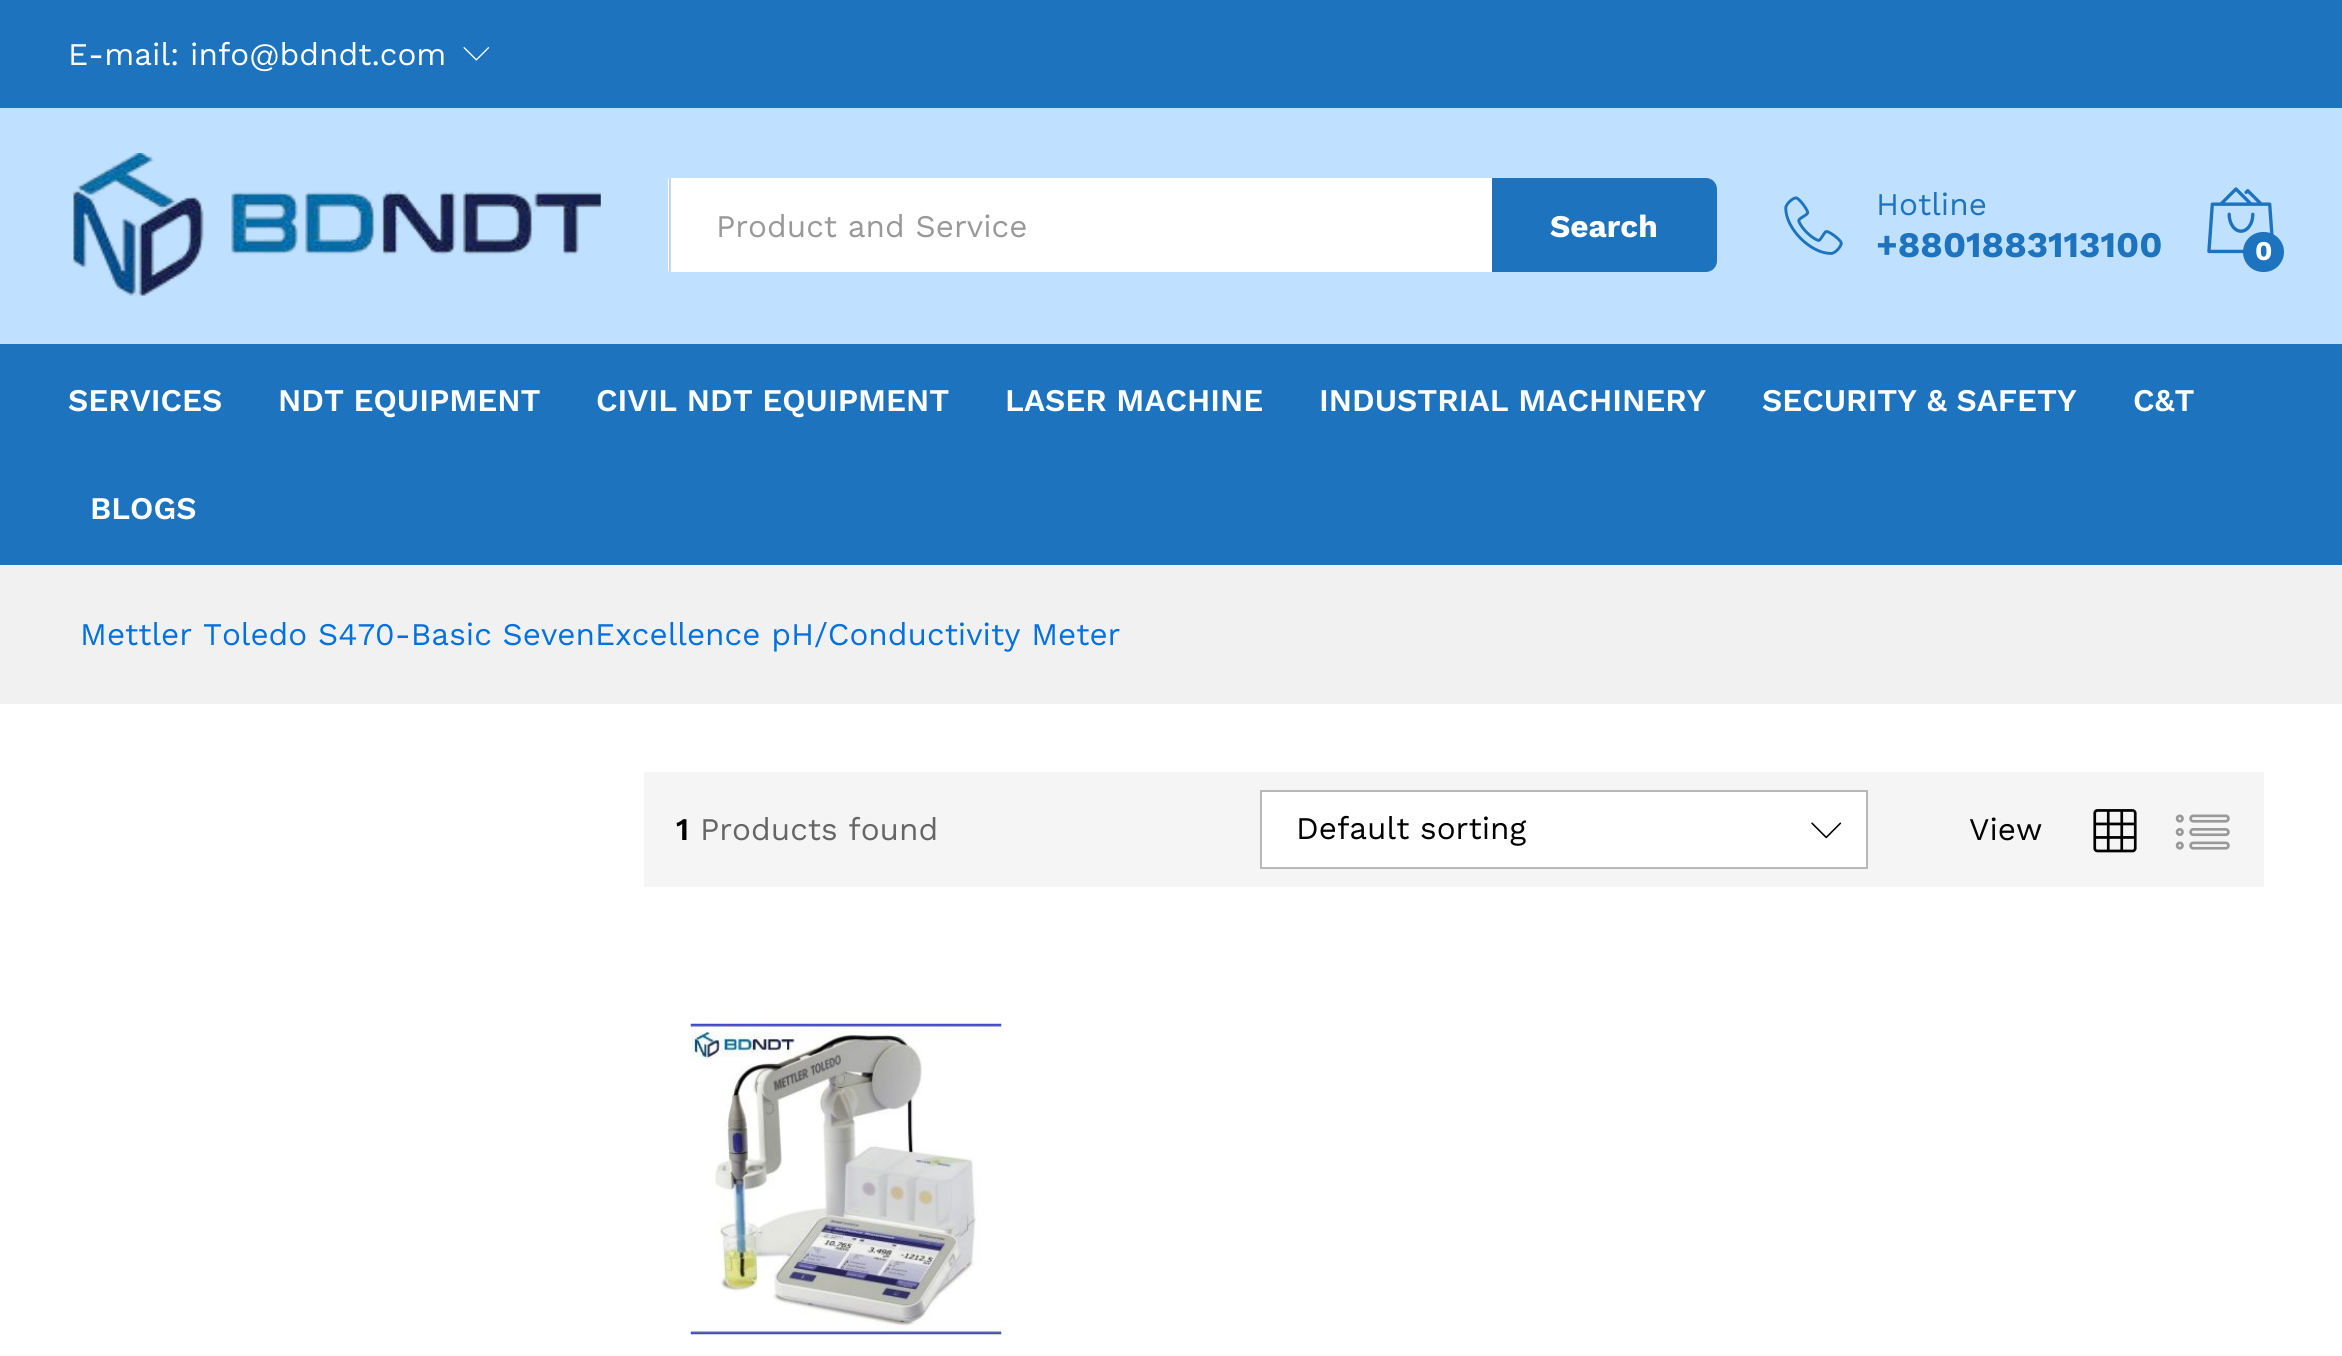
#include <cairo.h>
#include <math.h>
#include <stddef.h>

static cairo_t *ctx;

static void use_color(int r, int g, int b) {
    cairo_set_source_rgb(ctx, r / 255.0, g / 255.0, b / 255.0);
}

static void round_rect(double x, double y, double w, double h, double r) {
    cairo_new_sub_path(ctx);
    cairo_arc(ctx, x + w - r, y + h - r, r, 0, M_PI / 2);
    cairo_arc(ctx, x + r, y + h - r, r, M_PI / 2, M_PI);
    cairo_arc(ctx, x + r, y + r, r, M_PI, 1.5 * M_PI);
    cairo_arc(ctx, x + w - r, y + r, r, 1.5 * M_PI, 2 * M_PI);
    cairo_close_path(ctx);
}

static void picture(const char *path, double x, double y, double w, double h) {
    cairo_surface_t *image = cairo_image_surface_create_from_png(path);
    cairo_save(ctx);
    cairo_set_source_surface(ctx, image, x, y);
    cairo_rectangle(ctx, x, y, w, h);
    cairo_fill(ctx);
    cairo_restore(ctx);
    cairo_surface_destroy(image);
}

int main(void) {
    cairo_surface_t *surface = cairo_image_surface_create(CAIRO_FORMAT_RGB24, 2342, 1356);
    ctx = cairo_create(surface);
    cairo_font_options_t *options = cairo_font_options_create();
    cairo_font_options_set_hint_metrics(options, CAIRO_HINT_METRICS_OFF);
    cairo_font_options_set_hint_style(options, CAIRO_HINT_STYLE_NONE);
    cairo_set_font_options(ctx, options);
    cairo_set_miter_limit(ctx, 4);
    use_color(255, 255, 255);
    cairo_paint(ctx);
    use_color(30, 115, 190);
    cairo_rectangle(ctx, 0, 0, 2342, 108);
    cairo_fill(ctx);
    cairo_select_font_face(ctx, "Work Sans", CAIRO_FONT_SLANT_NORMAL, CAIRO_FONT_WEIGHT_NORMAL);
    cairo_set_font_size(ctx, 31.5);
    use_color(255, 255, 255);
    cairo_move_to(ctx, 68, 65);
    cairo_show_text(ctx, "E-mail: info@bdndt.com");
    picture("img1.png", 463, 47, 27, 14);
    use_color(191, 225, 255);
    cairo_rectangle(ctx, 0, 108, 2342, 236);
    cairo_fill(ctx);
    picture("img2.png", 72, 153, 529, 144);
    use_color(255, 255, 255);
    cairo_new_path(ctx);
    cairo_move_to(ctx, 670, 178);
    cairo_line_to(ctx, 670, 272);
    cairo_curve_to(ctx, 669, 272, 668, 271, 668, 270);
    cairo_line_to(ctx, 668, 180);
    cairo_curve_to(ctx, 668, 179, 669, 178, 670, 178);
    cairo_close_path(ctx);
    cairo_fill(ctx);
    use_color(204, 204, 204);
    cairo_new_path(ctx);
    cairo_move_to(ctx, 670, 272);
    cairo_line_to(ctx, 670, 178);
    cairo_line_to(ctx, 669, 179);
    cairo_line_to(ctx, 669, 271);
    cairo_close_path(ctx);
    cairo_fill(ctx);
    use_color(255, 255, 255);
    cairo_rectangle(ctx, 671, 178, 821, 94);
    cairo_fill(ctx);
    use_color(153, 153, 153);
    cairo_move_to(ctx, 716, 237);
    cairo_show_text(ctx, "Product and Service");
    use_color(30, 115, 190);
    cairo_new_path(ctx);
    cairo_move_to(ctx, 1492, 178);
    cairo_line_to(ctx, 1706, 178);
    cairo_curve_to(ctx, 1712, 178, 1717, 183, 1717, 189);
    cairo_line_to(ctx, 1717, 261);
    cairo_curve_to(ctx, 1717, 267, 1712, 272, 1706, 272);
    cairo_line_to(ctx, 1492, 272);
    cairo_close_path(ctx);
    cairo_fill(ctx);
    cairo_select_font_face(ctx, "Work Sans", CAIRO_FONT_SLANT_NORMAL, CAIRO_FONT_WEIGHT_BOLD);
    use_color(255, 255, 255);
    cairo_move_to(ctx, 1550, 237);
    cairo_show_text(ctx, "Search");
    picture("img3.png", 1784, 196, 59, 59);
    cairo_select_font_face(ctx, "Work Sans", CAIRO_FONT_SLANT_NORMAL, CAIRO_FONT_WEIGHT_NORMAL);
    use_color(30, 115, 190);
    cairo_move_to(ctx, 1876, 215);
    cairo_show_text(ctx, "Hotline");
    cairo_select_font_face(ctx, "Work Sans", CAIRO_FONT_SLANT_NORMAL, CAIRO_FONT_WEIGHT_BOLD);
    cairo_set_font_size(ctx, 36);
    cairo_move_to(ctx, 1876, 257);
    cairo_show_text(ctx, "+8801883113100");
    picture("img4.png", 2207, 187, 67, 67);
    round_rect(2243, 232, 41, 40, 20);
    cairo_fill(ctx);
    cairo_set_font_size(ctx, 27);
    use_color(255, 255, 255);
    cairo_move_to(ctx, 2255, 260);
    cairo_show_text(ctx, "0");
    use_color(30, 115, 190);
    cairo_rectangle(ctx, 0, 344, 2342, 221);
    cairo_fill(ctx);
    cairo_select_font_face(ctx, "Work Sans SemiBold", CAIRO_FONT_SLANT_NORMAL, CAIRO_FONT_WEIGHT_NORMAL);
    cairo_set_font_size(ctx, 31.5);
    use_color(255, 255, 255);
    cairo_move_to(ctx, 68, 411);
    cairo_show_text(ctx, "SERVICES");
    cairo_move_to(ctx, 278, 411);
    cairo_show_text(ctx, "NDT EQUIPMENT");
    cairo_move_to(ctx, 596, 411);
    cairo_show_text(ctx, "CIVIL NDT EQUIPMENT");
    cairo_move_to(ctx, 1005, 411);
    cairo_show_text(ctx, "LASER MACHINE");
    cairo_move_to(ctx, 1319, 411);
    cairo_show_text(ctx, "INDUSTRIAL MACHINERY");
    cairo_move_to(ctx, 1762, 411);
    cairo_show_text(ctx, "SECURITY & SAFETY");
    cairo_move_to(ctx, 2133, 411);
    cairo_show_text(ctx, "C&T");
    cairo_move_to(ctx, 90, 519);
    cairo_show_text(ctx, "BLOGS");
    use_color(241, 241, 241);
    cairo_rectangle(ctx, 0, 565, 2342, 139);
    cairo_fill(ctx);
    cairo_select_font_face(ctx, "Work Sans", CAIRO_FONT_SLANT_NORMAL, CAIRO_FONT_WEIGHT_NORMAL);
    use_color(0, 113, 223);
    cairo_move_to(ctx, 80, 645);
    cairo_show_text(ctx, "Mettler Toledo S470-Basic SevenExcellence pH/Conductivity Meter");
    use_color(245, 245, 245);
    cairo_rectangle(ctx, 644, 772, 1620, 115);
    cairo_fill(ctx);
    cairo_select_font_face(ctx, "Work Sans SemiBold", CAIRO_FONT_SLANT_NORMAL, CAIRO_FONT_WEIGHT_NORMAL);
    use_color(0, 0, 0);
    cairo_move_to(ctx, 676, 840);
    cairo_show_text(ctx, "1");
    cairo_select_font_face(ctx, "Work Sans", CAIRO_FONT_SLANT_NORMAL, CAIRO_FONT_WEIGHT_NORMAL);
    use_color(102, 102, 102);
    cairo_move_to(ctx, 700, 840);
    cairo_show_text(ctx, "Products found");
    use_color(255, 255, 255);
    cairo_rectangle(ctx, 1261, 791, 606, 77);
    cairo_fill_preserve(ctx);
    use_color(184, 184, 184);
    cairo_stroke(ctx);
    use_color(0, 0, 0);
    cairo_move_to(ctx, 1296, 839);
    cairo_show_text(ctx, "Default sorting");
    picture("img5.png", 1811, 822, 31, 17);
    cairo_move_to(ctx, 1969, 840);
    cairo_show_text(ctx, "View");
    picture("img6.png", 2093, 809, 44, 44);
    picture("img7.png", 2175, 814, 55, 36);
    picture("img8.png", 690, 1023, 312, 312);
    cairo_surface_write_to_png(surface, "result.png");
    cairo_font_options_destroy(options);
    cairo_destroy(ctx);
    cairo_surface_destroy(surface);
    return 0;
}
